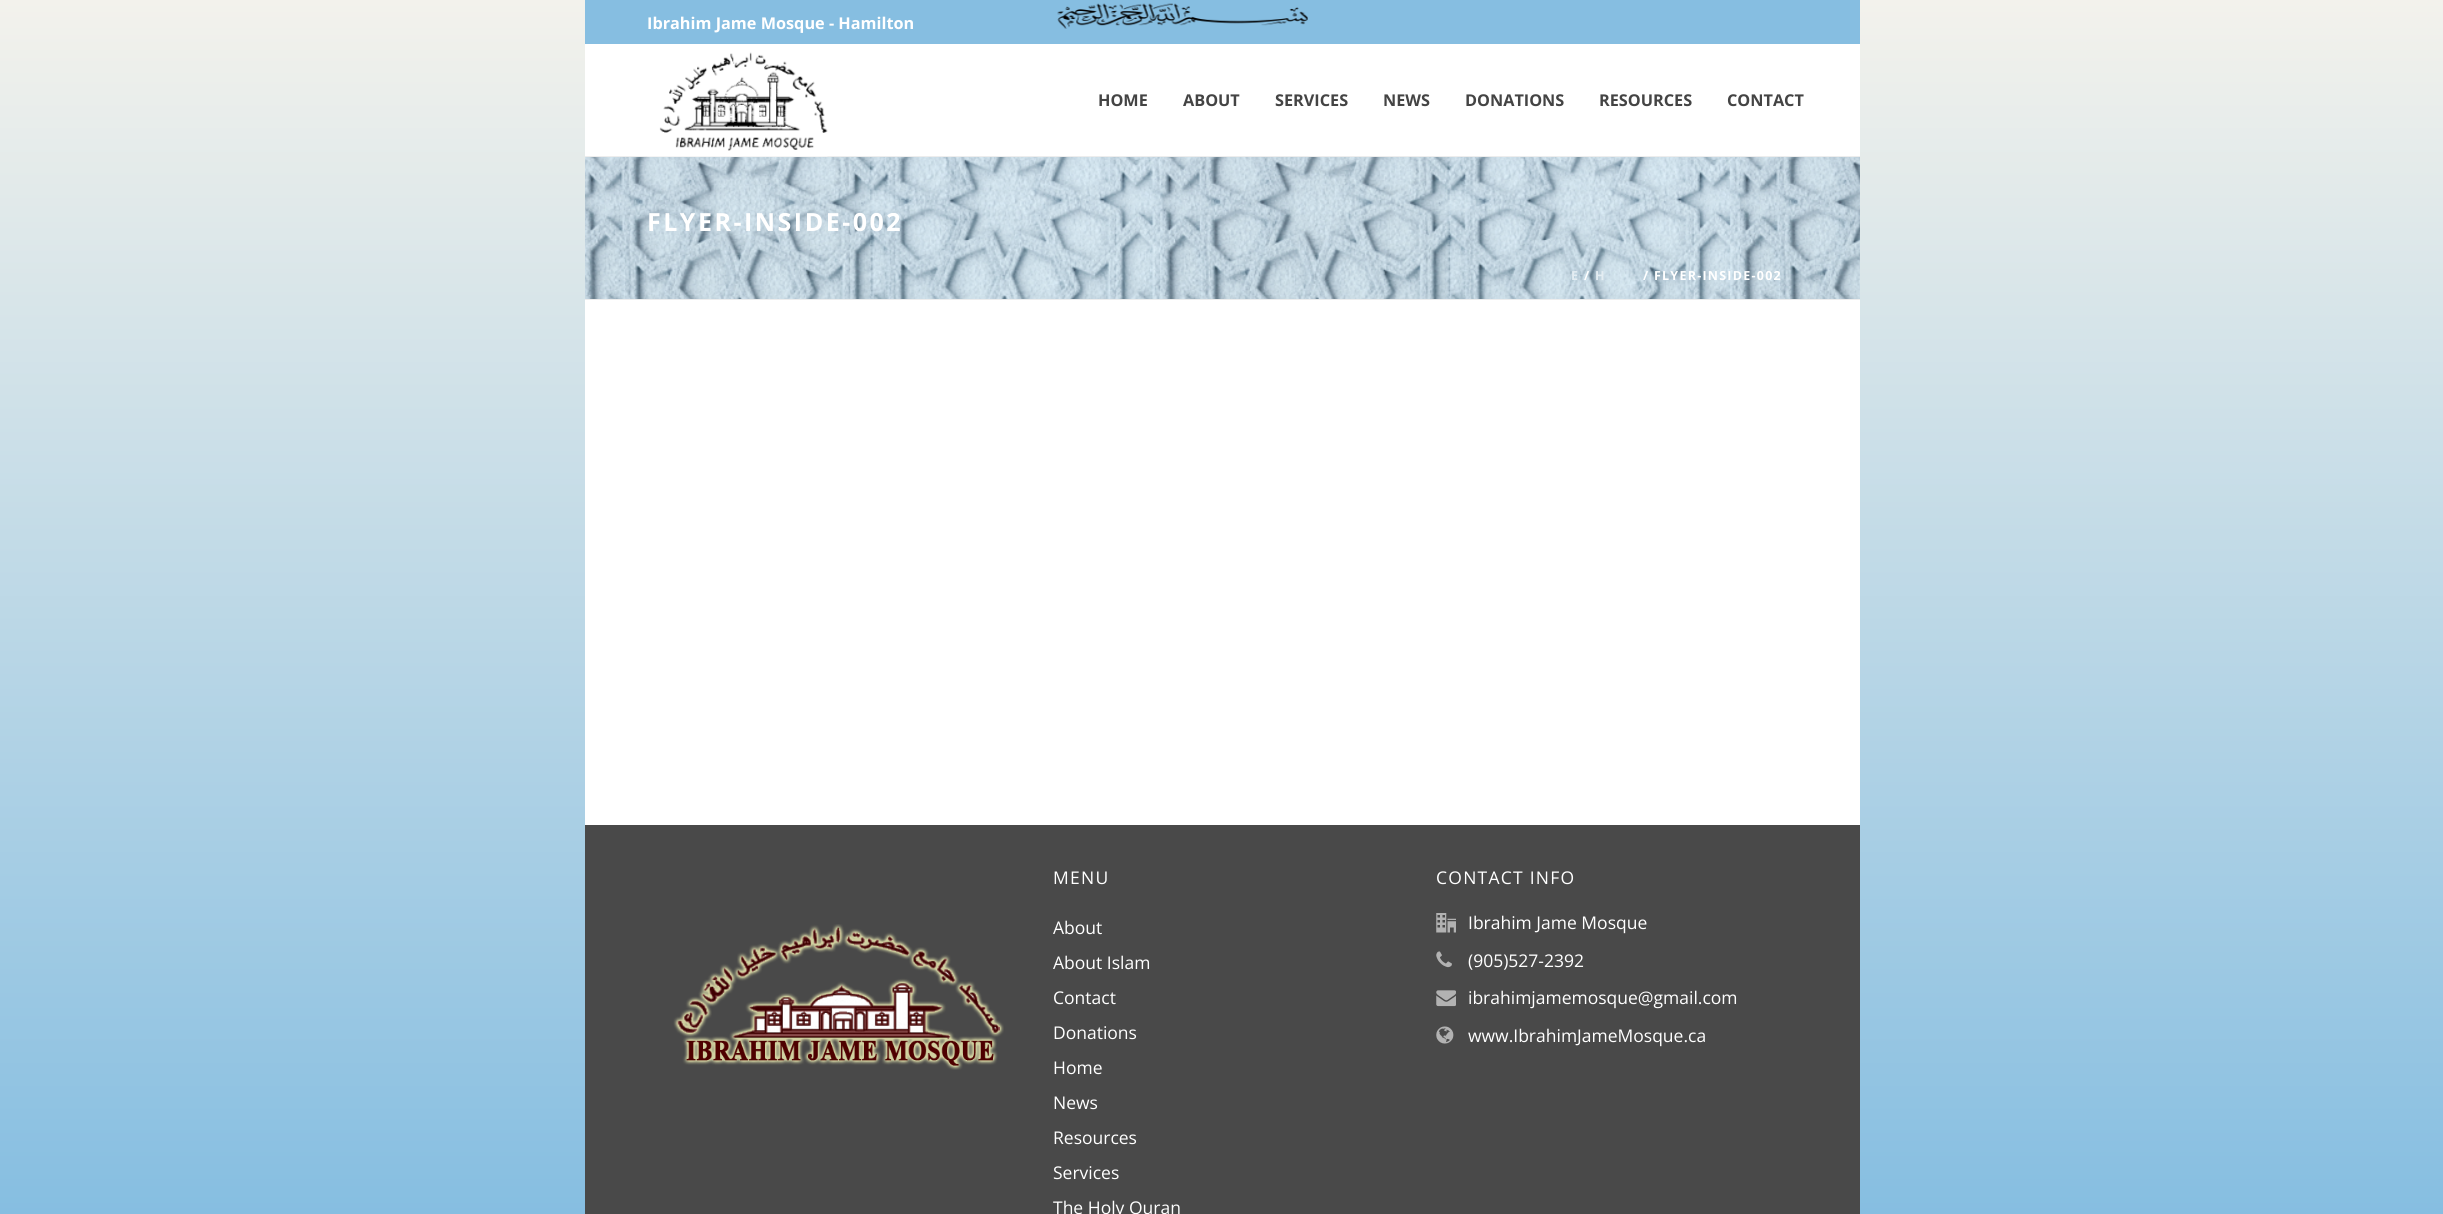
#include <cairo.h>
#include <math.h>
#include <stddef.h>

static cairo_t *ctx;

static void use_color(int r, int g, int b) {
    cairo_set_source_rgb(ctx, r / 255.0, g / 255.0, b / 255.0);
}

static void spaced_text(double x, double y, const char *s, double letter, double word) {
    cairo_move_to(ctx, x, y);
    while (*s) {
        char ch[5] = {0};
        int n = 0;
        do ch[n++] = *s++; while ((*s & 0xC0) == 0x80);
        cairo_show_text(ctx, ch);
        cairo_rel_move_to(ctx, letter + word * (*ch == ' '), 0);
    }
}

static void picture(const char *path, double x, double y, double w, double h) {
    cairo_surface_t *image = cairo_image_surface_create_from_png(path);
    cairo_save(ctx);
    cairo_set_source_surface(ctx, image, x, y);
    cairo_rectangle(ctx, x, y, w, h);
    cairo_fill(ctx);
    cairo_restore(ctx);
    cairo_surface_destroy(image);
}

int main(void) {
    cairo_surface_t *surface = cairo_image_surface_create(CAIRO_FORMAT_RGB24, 2443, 1214);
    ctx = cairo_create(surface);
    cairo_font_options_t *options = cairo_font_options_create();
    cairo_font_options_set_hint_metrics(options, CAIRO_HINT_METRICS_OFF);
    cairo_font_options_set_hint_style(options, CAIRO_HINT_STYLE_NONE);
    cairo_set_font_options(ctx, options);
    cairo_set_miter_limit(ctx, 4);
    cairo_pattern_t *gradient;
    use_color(255, 255, 255);
    cairo_paint(ctx);
    gradient = cairo_pattern_create_linear(1222, 0, 1222, 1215);
    cairo_pattern_add_color_stop_rgba(gradient, 0, 0.953, 0.949, 0.925, 1);
    cairo_pattern_add_color_stop_rgba(gradient, 1, 0.525, 0.745, 0.882, 1);
    cairo_set_source(ctx, gradient);
    cairo_pattern_destroy(gradient);
    cairo_rectangle(ctx, 0, 0, 2443, 1214);
    cairo_fill(ctx);
    picture("img1.png", 585, 157, 1275, 142);
    use_color(237, 237, 237);
    cairo_rectangle(ctx, 585, 299, 1275, 1);
    cairo_fill(ctx);
    use_color(134, 190, 225);
    cairo_rectangle(ctx, 585, 0, 1275, 44);
    cairo_fill(ctx);
    cairo_select_font_face(ctx, "Open Sans", CAIRO_FONT_SLANT_NORMAL, CAIRO_FONT_WEIGHT_BOLD);
    cairo_set_font_size(ctx, 16.25);
    use_color(255, 255, 255);
    cairo_move_to(ctx, 647, 29);
    cairo_show_text(ctx, "Ibrahim Jame Mosque - Hamilton");
    picture("img2.png", 1057, 3, 251, 26);
    use_color(237, 237, 237);
    cairo_rectangle(ctx, 585, 156, 1275, 1);
    cairo_fill(ctx);
    use_color(255, 255, 255);
    cairo_rectangle(ctx, 585, 44, 1275, 112);
    cairo_fill(ctx);
    picture("img3.png", 647, 44, 181, 113);
    use_color(68, 68, 68);
    cairo_move_to(ctx, 1098, 106);
    cairo_show_text(ctx, "HOME");
    cairo_move_to(ctx, 1183, 106);
    cairo_show_text(ctx, "ABOUT");
    cairo_move_to(ctx, 1275, 106);
    cairo_show_text(ctx, "SERVICES");
    cairo_move_to(ctx, 1383, 106);
    cairo_show_text(ctx, "NEWS");
    cairo_move_to(ctx, 1465, 106);
    cairo_show_text(ctx, "DONATIONS");
    cairo_move_to(ctx, 1599, 106);
    cairo_show_text(ctx, "RESOURCES");
    cairo_move_to(ctx, 1727, 106);
    cairo_show_text(ctx, "CONTACT");
    cairo_set_font_size(ctx, 25);
    use_color(255, 255, 255);
    spaced_text(647, 231, "FLYER-INSIDE-002", 2.5, 0);
    cairo_set_font_size(ctx, 12.5);
    use_color(228, 237, 242);
    spaced_text(1571, 280, "E", 1.25, 0);
    use_color(255, 255, 255);
    spaced_text(1584, 280, "/", 1.25, 0);
    use_color(228, 237, 242);
    spaced_text(1595, 280, "H", 1.25, 0);
    use_color(255, 255, 255);
    spaced_text(1643, 280, "/ FLYER-INSIDE-002", 1.25, 0);
    cairo_rectangle(ctx, 585, 300, 1275, 525);
    cairo_fill(ctx);
    use_color(73, 73, 73);
    cairo_rectangle(ctx, 585, 825, 1275, 389);
    cairo_fill(ctx);
    picture("img4.png", 673, 924, 331, 146);
    cairo_select_font_face(ctx, "Open Sans", CAIRO_FONT_SLANT_NORMAL, CAIRO_FONT_WEIGHT_NORMAL);
    cairo_set_font_size(ctx, 17.5);
    use_color(255, 255, 255);
    spaced_text(1053, 884, "MENU", 1.25, 0);
    cairo_move_to(ctx, 1053, 934);
    cairo_show_text(ctx, "About");
    cairo_move_to(ctx, 1053, 969);
    cairo_show_text(ctx, "About Islam");
    cairo_move_to(ctx, 1053, 1004);
    cairo_show_text(ctx, "Contact");
    cairo_move_to(ctx, 1053, 1039);
    cairo_show_text(ctx, "Donations");
    cairo_move_to(ctx, 1053, 1074);
    cairo_show_text(ctx, "Home");
    cairo_move_to(ctx, 1053, 1109);
    cairo_show_text(ctx, "News");
    cairo_move_to(ctx, 1053, 1144);
    cairo_show_text(ctx, "Resources");
    cairo_move_to(ctx, 1053, 1179);
    cairo_show_text(ctx, "Services");
    cairo_move_to(ctx, 1053, 1214);
    cairo_show_text(ctx, "The Holy Quran");
    spaced_text(1436, 884, "CONTACT INFO", 1.25, 0);
    picture("img5.png", 1436, 913, 20, 20);
    cairo_move_to(ctx, 1468, 929);
    cairo_show_text(ctx, "Ibrahim Jame Mosque");
    picture("img6.png", 1436, 951, 16, 17);
    cairo_move_to(ctx, 1468, 967);
    cairo_show_text(ctx, "(905)527-2392");
    picture("img7.png", 1436, 990, 20, 17);
    cairo_move_to(ctx, 1468, 1004);
    cairo_show_text(ctx, "ibrahimjamemosque@gmail.com");
    picture("img8.png", 1436, 1026, 18, 18);
    cairo_move_to(ctx, 1468, 1042);
    cairo_show_text(ctx, "www.IbrahimJameMosque.ca");
    cairo_surface_write_to_png(surface, "result.png");
    cairo_font_options_destroy(options);
    cairo_destroy(ctx);
    cairo_surface_destroy(surface);
    return 0;
}
